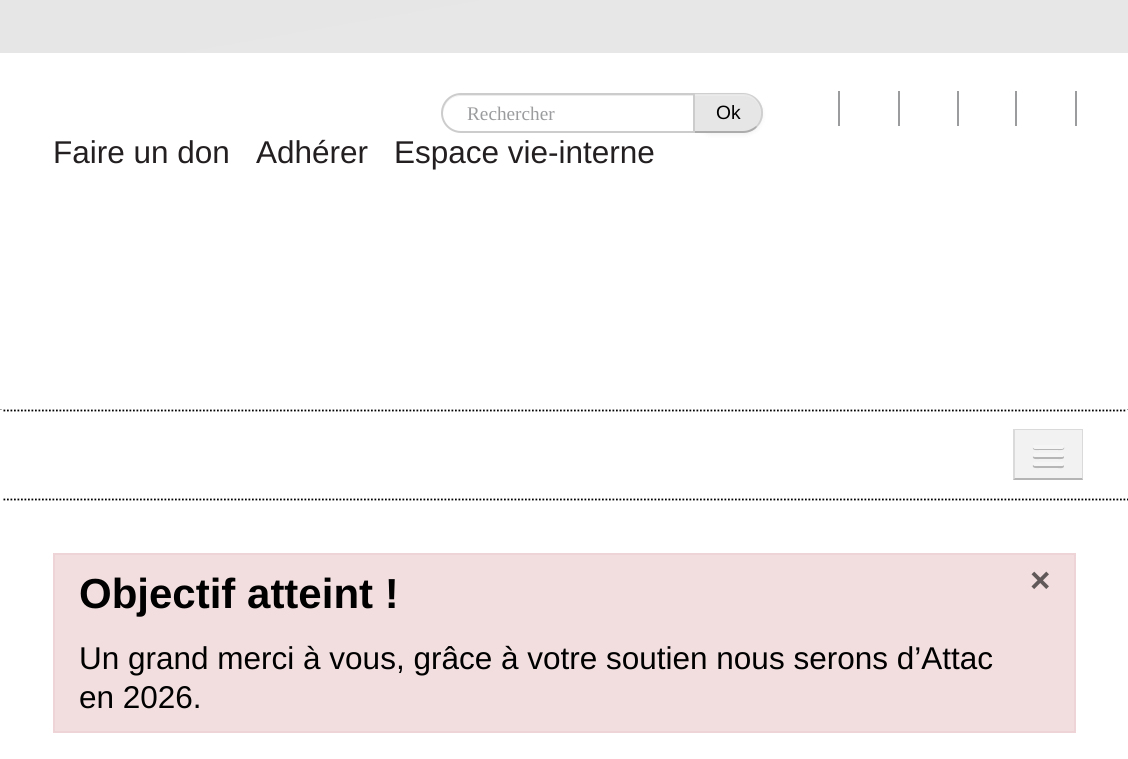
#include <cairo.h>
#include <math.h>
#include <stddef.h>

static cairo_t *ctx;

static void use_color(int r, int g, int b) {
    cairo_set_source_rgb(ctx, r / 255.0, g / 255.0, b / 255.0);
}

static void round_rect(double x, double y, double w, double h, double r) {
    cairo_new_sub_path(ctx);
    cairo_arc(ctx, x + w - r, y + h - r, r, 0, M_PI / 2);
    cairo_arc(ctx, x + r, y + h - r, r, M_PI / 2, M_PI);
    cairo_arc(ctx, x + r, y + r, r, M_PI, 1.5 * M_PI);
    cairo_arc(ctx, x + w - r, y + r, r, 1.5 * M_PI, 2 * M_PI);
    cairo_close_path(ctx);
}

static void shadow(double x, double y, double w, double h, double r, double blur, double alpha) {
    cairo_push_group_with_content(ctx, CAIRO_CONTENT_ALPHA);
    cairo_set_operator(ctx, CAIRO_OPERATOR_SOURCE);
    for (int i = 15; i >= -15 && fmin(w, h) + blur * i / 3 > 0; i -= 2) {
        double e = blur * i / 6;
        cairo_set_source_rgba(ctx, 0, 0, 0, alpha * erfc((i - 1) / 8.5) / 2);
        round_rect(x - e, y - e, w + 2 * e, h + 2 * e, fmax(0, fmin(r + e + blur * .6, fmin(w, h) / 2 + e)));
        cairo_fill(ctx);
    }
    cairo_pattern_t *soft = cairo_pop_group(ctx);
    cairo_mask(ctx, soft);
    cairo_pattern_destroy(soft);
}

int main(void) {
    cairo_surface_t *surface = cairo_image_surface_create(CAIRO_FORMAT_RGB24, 1128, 759);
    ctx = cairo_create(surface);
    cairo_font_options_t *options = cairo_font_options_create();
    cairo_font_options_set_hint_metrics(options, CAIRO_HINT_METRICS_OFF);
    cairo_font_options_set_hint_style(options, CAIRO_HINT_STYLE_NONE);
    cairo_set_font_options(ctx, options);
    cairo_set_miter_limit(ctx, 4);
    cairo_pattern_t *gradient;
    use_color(255, 255, 255);
    cairo_paint(ctx);
    gradient = cairo_pattern_create_linear(156, -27, 973, 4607);
    cairo_pattern_add_color_stop_rgba(gradient, 0, 0.902, 0.902, 0.902, 1);
    cairo_pattern_add_color_stop_rgba(gradient, 0.72, 1, 0.98, 0.984, 1);
    cairo_pattern_add_color_stop_rgba(gradient, 1, 0.957, 0.925, 0.925, 1);
    cairo_set_source(ctx, gradient);
    cairo_pattern_destroy(gradient);
    cairo_rectangle(ctx, 0, 0, 1128, 53);
    cairo_fill(ctx);
    use_color(0, 0, 0);
    shadow(693, 95, 70, 40, 20, 2, 0.05);
    use_color(230, 230, 230);
    cairo_new_path(ctx);
    cairo_move_to(ctx, 693, 93);
    cairo_line_to(ctx, 743, 93);
    cairo_curve_to(ctx, 754, 93, 763, 102, 763, 113);
    cairo_curve_to(ctx, 763, 124, 754, 133, 743, 133);
    cairo_line_to(ctx, 693, 133);
    cairo_close_path(ctx);
    cairo_fill(ctx);
    cairo_save(ctx);
    cairo_new_path(ctx);
    cairo_move_to(ctx, 693, 93);
    cairo_line_to(ctx, 743, 93);
    cairo_curve_to(ctx, 754, 93, 763, 102, 763, 113);
    cairo_curve_to(ctx, 763, 124, 754, 133, 743, 133);
    cairo_line_to(ctx, 693, 133);
    cairo_close_path(ctx);
    cairo_clip(ctx);
    cairo_rectangle(ctx, 695, 95, 68, 36);
    cairo_fill(ctx);
    cairo_restore(ctx);
    use_color(235, 235, 235);
    cairo_new_path(ctx);
    cairo_move_to(ctx, 695, 96);
    cairo_line_to(ctx, 743, 96);
    cairo_curve_to(ctx, 753, 96, 760, 103, 761, 114);
    cairo_line_to(ctx, 761, 113);
    cairo_curve_to(ctx, 761, 103, 753, 95, 743, 95);
    cairo_line_to(ctx, 695, 95);
    cairo_close_path(ctx);
    cairo_fill(ctx);
    cairo_set_source_rgba(ctx, 0, 0, 0, 0.1);
    cairo_new_path(ctx);
    cairo_move_to(ctx, 695, 94);
    cairo_line_to(ctx, 743, 94);
    cairo_curve_to(ctx, 748, 94, 753, 96, 756, 100);
    cairo_line_to(ctx, 757, 99);
    cairo_curve_to(ctx, 753, 95, 748, 93, 743, 93);
    cairo_line_to(ctx, 693, 93);
    cairo_line_to(ctx, 695, 95);
    cairo_close_path(ctx);
    cairo_fill(ctx);
    cairo_new_path(ctx);
    cairo_move_to(ctx, 757, 99);
    cairo_curve_to(ctx, 765, 106.5, 765, 119.5, 757, 127);
    cairo_line_to(ctx, 756, 126);
    cairo_curve_to(ctx, 763, 118.5, 762.5, 107, 756, 100);
    cairo_close_path(ctx);
    cairo_fill(ctx);
    cairo_set_source_rgba(ctx, 0, 0, 0, 0.25);
    cairo_new_path(ctx);
    cairo_move_to(ctx, 743, 133);
    cairo_curve_to(ctx, 748, 133, 754, 131, 757, 127);
    cairo_line_to(ctx, 756, 126);
    cairo_curve_to(ctx, 752, 129, 748, 131, 743, 131);
    cairo_line_to(ctx, 695, 131);
    cairo_line_to(ctx, 693, 133);
    cairo_close_path(ctx);
    cairo_fill(ctx);
    use_color(255, 255, 255);
    cairo_new_path(ctx);
    cairo_move_to(ctx, 461, 93);
    cairo_line_to(ctx, 695, 93);
    cairo_line_to(ctx, 695, 133);
    cairo_line_to(ctx, 461, 133);
    cairo_curve_to(ctx, 450, 133, 441, 124, 441, 113);
    cairo_curve_to(ctx, 441, 102, 450, 93, 461, 93);
    cairo_close_path(ctx);
    cairo_fill(ctx);
    use_color(236, 236, 236);
    cairo_new_path(ctx);
    cairo_move_to(ctx, 461, 96);
    cairo_line_to(ctx, 693, 96);
    cairo_line_to(ctx, 693, 95);
    cairo_line_to(ctx, 500, 95);
    cairo_curve_to(ctx, 488, 95, 442, 86, 443, 114);
    cairo_curve_to(ctx, 444, 103, 451, 96, 461, 96);
    cairo_close_path(ctx);
    cairo_fill(ctx);
    cairo_new_path(ctx);
    cairo_move_to(ctx, 461, 94);
    cairo_line_to(ctx, 694, 94);
    cairo_line_to(ctx, 694, 132);
    cairo_line_to(ctx, 461, 132);
    cairo_curve_to(ctx, 450.5, 132, 442, 123.5, 442, 113);
    cairo_curve_to(ctx, 442, 102.5, 450.5, 94, 461, 94);
    cairo_close_path(ctx);
    use_color(204, 204, 204);
    cairo_stroke(ctx);
    cairo_select_font_face(ctx, "Liberation Serif", CAIRO_FONT_SLANT_NORMAL, CAIRO_FONT_WEIGHT_NORMAL);
    cairo_set_font_size(ctx, 19.25);
    use_color(155, 156, 158);
    cairo_move_to(ctx, 467, 120);
    cairo_show_text(ctx, "Rechercher");
    cairo_select_font_face(ctx, "Liberation Sans", CAIRO_FONT_SLANT_NORMAL, CAIRO_FONT_WEIGHT_NORMAL);
    use_color(0, 0, 0);
    cairo_move_to(ctx, 716, 119);
    cairo_show_text(ctx, "Ok");
    use_color(155, 156, 158);
    cairo_rectangle(ctx, 838, 91, 2, 35);
    cairo_fill(ctx);
    cairo_rectangle(ctx, 898, 91, 2, 35);
    cairo_fill(ctx);
    cairo_rectangle(ctx, 957, 91, 2, 35);
    cairo_fill(ctx);
    cairo_rectangle(ctx, 1015, 91, 2, 35);
    cairo_fill(ctx);
    cairo_rectangle(ctx, 1075, 91, 2, 35);
    cairo_fill(ctx);
    cairo_set_font_size(ctx, 31.5);
    use_color(35, 31, 32);
    cairo_move_to(ctx, 53, 163);
    cairo_show_text(ctx, "Faire un don");
    cairo_move_to(ctx, 256, 163);
    cairo_show_text(ctx, "Adhérer");
    cairo_move_to(ctx, 394, 163);
    cairo_show_text(ctx, "Espace vie-interne");
    cairo_new_path(ctx);
    cairo_move_to(ctx, 0, 410.5);
    cairo_line_to(ctx, 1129, 410.5);
    use_color(0, 0, 0);
    cairo_set_line_width(ctx, 1.8);
    cairo_set_dash(ctx, (double[]){1.75, 1.75}, 2, 0);
    cairo_stroke(ctx);
    use_color(255, 255, 255);
    cairo_rectangle(ctx, 1127, 410, 1, 2);
    cairo_fill(ctx);
    cairo_new_path(ctx);
    cairo_move_to(ctx, 0, 499.5);
    cairo_line_to(ctx, 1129, 499.5);
    use_color(0, 0, 0);
    cairo_stroke(ctx);
    use_color(255, 255, 255);
    cairo_rectangle(ctx, 0, 410, 2, 91);
    cairo_fill(ctx);
    use_color(242, 242, 242);
    cairo_rectangle(ctx, 1013, 429, 70, 51);
    cairo_fill(ctx);
    use_color(218, 218, 218);
    cairo_new_path(ctx);
    cairo_move_to(ctx, 1013, 429);
    cairo_line_to(ctx, 1083, 429);
    cairo_line_to(ctx, 1082, 430);
    cairo_line_to(ctx, 1015, 430);
    cairo_close_path(ctx);
    cairo_fill(ctx);
    cairo_set_source_rgba(ctx, 0, 0, 0, 0.1);
    cairo_new_path(ctx);
    cairo_move_to(ctx, 1083, 429);
    cairo_line_to(ctx, 1083, 480);
    cairo_line_to(ctx, 1082, 478);
    cairo_line_to(ctx, 1082, 430);
    cairo_close_path(ctx);
    cairo_fill(ctx);
    cairo_set_source_rgba(ctx, 0, 0, 0, 0.25);
    cairo_new_path(ctx);
    cairo_move_to(ctx, 1083, 480);
    cairo_line_to(ctx, 1013, 480);
    cairo_line_to(ctx, 1015, 478);
    cairo_line_to(ctx, 1082, 478);
    cairo_close_path(ctx);
    cairo_fill(ctx);
    cairo_set_source_rgba(ctx, 0, 0, 0, 0.1);
    cairo_new_path(ctx);
    cairo_move_to(ctx, 1013, 480);
    cairo_line_to(ctx, 1013, 429);
    cairo_line_to(ctx, 1015, 430);
    cairo_line_to(ctx, 1015, 478);
    cairo_close_path(ctx);
    cairo_fill(ctx);
    use_color(182, 182, 182);
    cairo_new_path(ctx);
    cairo_move_to(ctx, 1033, 447.5);
    cairo_curve_to(ctx, 1032, 451, 1038.5, 450, 1039.5, 450);
    cairo_line_to(ctx, 1057.5, 450);
    cairo_curve_to(ctx, 1058.5, 450, 1065.5, 451, 1064, 447);
    cairo_line_to(ctx, 1062.5, 448);
    cairo_line_to(ctx, 1034, 448);
    cairo_close_path(ctx);
    cairo_fill(ctx);
    use_color(245, 245, 245);
    round_rect(1033, 445, 31, 4, 2);
    cairo_fill(ctx);
    use_color(182, 182, 182);
    cairo_new_path(ctx);
    cairo_move_to(ctx, 1033, 456.5);
    cairo_curve_to(ctx, 1032, 460, 1038.5, 459, 1039.5, 459);
    cairo_line_to(ctx, 1057.5, 459);
    cairo_curve_to(ctx, 1058, 459, 1066, 460, 1063.5, 456);
    cairo_line_to(ctx, 1062.5, 456.5);
    cairo_line_to(ctx, 1034, 456.5);
    cairo_close_path(ctx);
    cairo_fill(ctx);
    use_color(245, 245, 245);
    round_rect(1033, 453, 31, 4, 2);
    cairo_fill(ctx);
    use_color(182, 182, 182);
    cairo_new_path(ctx);
    cairo_move_to(ctx, 1033, 465);
    cairo_curve_to(ctx, 1031.5, 469, 1038.5, 468, 1039.5, 468);
    cairo_line_to(ctx, 1057.5, 468);
    cairo_curve_to(ctx, 1058.5, 468, 1063.5, 469, 1064, 466.5);
    cairo_line_to(ctx, 1063.5, 465);
    cairo_line_to(ctx, 1062.5, 465.5);
    cairo_curve_to(ctx, 1060, 466, 1034, 466, 1033, 465);
    cairo_close_path(ctx);
    cairo_fill(ctx);
    use_color(245, 245, 245);
    round_rect(1033, 462, 31, 4, 2);
    cairo_fill(ctx);
    use_color(242, 222, 222);
    cairo_rectangle(ctx, 54, 554, 1021, 178);
    cairo_fill_preserve(ctx);
    use_color(238, 211, 215);
    cairo_set_line_width(ctx, 2);
    cairo_set_dash(ctx, NULL, 0, 0);
    cairo_stroke(ctx);
    cairo_select_font_face(ctx, "Liberation Sans", CAIRO_FONT_SLANT_NORMAL, CAIRO_FONT_WEIGHT_BOLD);
    cairo_set_font_size(ctx, 42);
    use_color(0, 0, 0);
    cairo_move_to(ctx, 79, 608);
    cairo_show_text(ctx, "Objectif atteint !");
    cairo_set_font_size(ctx, 35);
    use_color(97, 89, 89);
    cairo_move_to(ctx, 1030, 592);
    cairo_show_text(ctx, "×");
    cairo_select_font_face(ctx, "Liberation Sans", CAIRO_FONT_SLANT_NORMAL, CAIRO_FONT_WEIGHT_NORMAL);
    cairo_set_font_size(ctx, 31.5);
    use_color(0, 0, 0);
    cairo_move_to(ctx, 79, 669);
    cairo_show_text(ctx, "Un grand merci à vous, grâce à votre soutien nous serons d’Attac");
    cairo_move_to(ctx, 79, 708);
    cairo_show_text(ctx, "en 2026.");
    cairo_surface_write_to_png(surface, "result.png");
    cairo_font_options_destroy(options);
    cairo_destroy(ctx);
    cairo_surface_destroy(surface);
    return 0;
}
